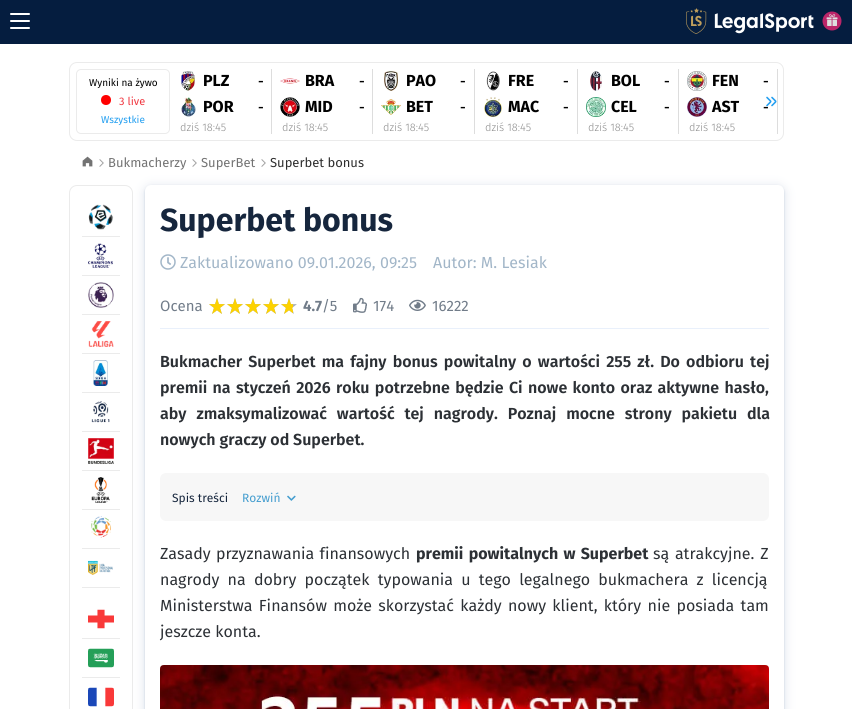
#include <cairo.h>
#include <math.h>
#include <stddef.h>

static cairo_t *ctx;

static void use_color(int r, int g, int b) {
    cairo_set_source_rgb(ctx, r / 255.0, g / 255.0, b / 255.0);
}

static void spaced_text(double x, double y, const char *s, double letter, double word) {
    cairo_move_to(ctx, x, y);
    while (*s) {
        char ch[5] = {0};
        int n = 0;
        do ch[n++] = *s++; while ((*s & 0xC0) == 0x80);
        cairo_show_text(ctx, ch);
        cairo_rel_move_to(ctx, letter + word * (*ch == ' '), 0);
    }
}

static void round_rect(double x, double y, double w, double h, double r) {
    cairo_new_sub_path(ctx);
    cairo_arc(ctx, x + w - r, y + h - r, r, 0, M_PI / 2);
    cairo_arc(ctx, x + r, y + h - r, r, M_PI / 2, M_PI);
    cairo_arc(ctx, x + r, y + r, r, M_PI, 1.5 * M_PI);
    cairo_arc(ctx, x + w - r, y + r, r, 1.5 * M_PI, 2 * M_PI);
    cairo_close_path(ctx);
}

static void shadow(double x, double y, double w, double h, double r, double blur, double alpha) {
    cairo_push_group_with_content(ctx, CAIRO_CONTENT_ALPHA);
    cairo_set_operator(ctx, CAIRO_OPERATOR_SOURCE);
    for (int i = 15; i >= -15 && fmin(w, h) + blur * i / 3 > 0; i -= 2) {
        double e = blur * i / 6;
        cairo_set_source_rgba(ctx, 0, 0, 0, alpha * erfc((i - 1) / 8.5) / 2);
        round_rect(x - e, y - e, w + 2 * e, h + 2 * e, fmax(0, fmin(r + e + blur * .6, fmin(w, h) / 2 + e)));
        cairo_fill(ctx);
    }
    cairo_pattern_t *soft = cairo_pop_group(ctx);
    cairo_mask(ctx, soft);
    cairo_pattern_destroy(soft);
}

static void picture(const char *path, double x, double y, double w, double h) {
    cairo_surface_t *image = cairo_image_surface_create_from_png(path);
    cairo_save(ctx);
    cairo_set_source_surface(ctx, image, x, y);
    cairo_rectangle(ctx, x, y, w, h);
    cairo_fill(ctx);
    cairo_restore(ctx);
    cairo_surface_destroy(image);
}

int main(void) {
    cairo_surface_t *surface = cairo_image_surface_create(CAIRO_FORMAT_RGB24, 852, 709);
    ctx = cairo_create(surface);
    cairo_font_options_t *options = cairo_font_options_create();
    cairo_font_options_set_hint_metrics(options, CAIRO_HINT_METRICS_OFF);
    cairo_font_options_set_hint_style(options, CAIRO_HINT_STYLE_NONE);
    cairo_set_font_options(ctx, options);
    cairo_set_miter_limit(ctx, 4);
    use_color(255, 255, 255);
    cairo_paint(ctx);
    use_color(5, 29, 63);
    cairo_rectangle(ctx, 0, 0, 852, 44);
    cairo_fill(ctx);
    use_color(255, 255, 255);
    round_rect(10, 13, 20, 2, 1);
    cairo_fill(ctx);
    round_rect(10, 20, 20, 2, 1);
    cairo_fill(ctx);
    round_rect(10, 27, 20, 2, 1);
    cairo_fill(ctx);
    picture("img1.png", 686, 8, 128, 26);
    picture("img2.png", 822, 11, 20, 20);
    round_rect(69.5, 62.5, 714, 78, 7.5);
    use_color(235, 235, 235);
    cairo_set_line_width(ctx, 1);
    cairo_stroke(ctx);
    round_rect(76.5, 69.5, 93, 64, 4.5);
    cairo_stroke(ctx);
    cairo_select_font_face(ctx, "Fira Sans", CAIRO_FONT_SLANT_NORMAL, CAIRO_FONT_WEIGHT_NORMAL);
    cairo_set_font_size(ctx, 10);
    use_color(0, 0, 0);
    cairo_move_to(ctx, 89, 86);
    cairo_show_text(ctx, "Wyniki na żywo");
    use_color(255, 0, 0);
    cairo_new_path(ctx);
    cairo_arc(ctx, 106, 100, 5, 0, 2 * M_PI);
    cairo_fill(ctx);
    cairo_set_font_size(ctx, 11);
    use_color(240, 55, 64);
    cairo_move_to(ctx, 119, 105);
    cairo_show_text(ctx, "3 live");
    cairo_set_font_size(ctx, 10);
    use_color(36, 159, 240);
    cairo_move_to(ctx, 101, 123);
    cairo_show_text(ctx, "Wszystkie");
    use_color(221, 221, 221);
    cairo_rectangle(ctx, 271, 69, 1, 65);
    cairo_fill(ctx);
    picture("img3.png", 181, 71, 14, 20);
    cairo_select_font_face(ctx, "Fira Sans", CAIRO_FONT_SLANT_NORMAL, CAIRO_FONT_WEIGHT_BOLD);
    cairo_set_font_size(ctx, 16);
    use_color(0, 0, 0);
    cairo_move_to(ctx, 203, 86);
    cairo_show_text(ctx, "PLZ");
    cairo_select_font_face(ctx, "Fira Sans Medium", CAIRO_FONT_SLANT_NORMAL, CAIRO_FONT_WEIGHT_NORMAL);
    cairo_set_font_size(ctx, 14);
    cairo_move_to(ctx, 258, 86);
    cairo_show_text(ctx, "-");
    picture("img4.png", 181, 97, 15, 20);
    cairo_select_font_face(ctx, "Fira Sans", CAIRO_FONT_SLANT_NORMAL, CAIRO_FONT_WEIGHT_BOLD);
    cairo_set_font_size(ctx, 16);
    cairo_move_to(ctx, 203, 112);
    cairo_show_text(ctx, "POR");
    cairo_select_font_face(ctx, "Fira Sans Medium", CAIRO_FONT_SLANT_NORMAL, CAIRO_FONT_WEIGHT_NORMAL);
    cairo_set_font_size(ctx, 14);
    cairo_move_to(ctx, 258, 112);
    cairo_show_text(ctx, "-");
    cairo_select_font_face(ctx, "Fira Sans Light", CAIRO_FONT_SLANT_NORMAL, CAIRO_FONT_WEIGHT_NORMAL);
    cairo_set_font_size(ctx, 11);
    use_color(138, 138, 138);
    cairo_move_to(ctx, 180, 131);
    cairo_show_text(ctx, "dziś 18:45");
    use_color(221, 221, 221);
    cairo_rectangle(ctx, 372, 69, 1, 65);
    cairo_fill(ctx);
    picture("img5.png", 280, 78, 20, 6);
    cairo_select_font_face(ctx, "Fira Sans", CAIRO_FONT_SLANT_NORMAL, CAIRO_FONT_WEIGHT_BOLD);
    cairo_set_font_size(ctx, 16);
    use_color(0, 0, 0);
    cairo_move_to(ctx, 305, 86);
    cairo_show_text(ctx, "BRA");
    cairo_select_font_face(ctx, "Fira Sans Medium", CAIRO_FONT_SLANT_NORMAL, CAIRO_FONT_WEIGHT_NORMAL);
    cairo_set_font_size(ctx, 14);
    cairo_move_to(ctx, 359, 86);
    cairo_show_text(ctx, "-");
    picture("img6.png", 280, 97, 20, 20);
    cairo_select_font_face(ctx, "Fira Sans", CAIRO_FONT_SLANT_NORMAL, CAIRO_FONT_WEIGHT_BOLD);
    cairo_set_font_size(ctx, 16);
    cairo_move_to(ctx, 305, 112);
    cairo_show_text(ctx, "MID");
    cairo_select_font_face(ctx, "Fira Sans Medium", CAIRO_FONT_SLANT_NORMAL, CAIRO_FONT_WEIGHT_NORMAL);
    cairo_set_font_size(ctx, 14);
    cairo_move_to(ctx, 359, 112);
    cairo_show_text(ctx, "-");
    cairo_select_font_face(ctx, "Fira Sans Light", CAIRO_FONT_SLANT_NORMAL, CAIRO_FONT_WEIGHT_NORMAL);
    cairo_set_font_size(ctx, 11);
    use_color(138, 138, 138);
    cairo_move_to(ctx, 282, 131);
    cairo_show_text(ctx, "dziś 18:45");
    use_color(221, 221, 221);
    cairo_rectangle(ctx, 474, 69, 1, 65);
    cairo_fill(ctx);
    picture("img7.png", 384, 71, 14, 20);
    cairo_select_font_face(ctx, "Fira Sans", CAIRO_FONT_SLANT_NORMAL, CAIRO_FONT_WEIGHT_BOLD);
    cairo_set_font_size(ctx, 16);
    use_color(0, 0, 0);
    cairo_move_to(ctx, 406, 86);
    cairo_show_text(ctx, "PAO");
    cairo_select_font_face(ctx, "Fira Sans Medium", CAIRO_FONT_SLANT_NORMAL, CAIRO_FONT_WEIGHT_NORMAL);
    cairo_set_font_size(ctx, 14);
    cairo_move_to(ctx, 460, 86);
    cairo_show_text(ctx, "-");
    picture("img8.png", 381, 99, 20, 16);
    cairo_select_font_face(ctx, "Fira Sans", CAIRO_FONT_SLANT_NORMAL, CAIRO_FONT_WEIGHT_BOLD);
    cairo_set_font_size(ctx, 16);
    cairo_move_to(ctx, 406, 112);
    cairo_show_text(ctx, "BET");
    cairo_select_font_face(ctx, "Fira Sans Medium", CAIRO_FONT_SLANT_NORMAL, CAIRO_FONT_WEIGHT_NORMAL);
    cairo_set_font_size(ctx, 14);
    cairo_move_to(ctx, 460, 112);
    cairo_show_text(ctx, "-");
    cairo_select_font_face(ctx, "Fira Sans Light", CAIRO_FONT_SLANT_NORMAL, CAIRO_FONT_WEIGHT_NORMAL);
    cairo_set_font_size(ctx, 11);
    use_color(138, 138, 138);
    cairo_move_to(ctx, 383, 131);
    cairo_show_text(ctx, "dziś 18:45");
    use_color(221, 221, 221);
    cairo_rectangle(ctx, 577, 69, 1, 65);
    cairo_fill(ctx);
    picture("img9.png", 486, 71, 14, 20);
    cairo_select_font_face(ctx, "Fira Sans", CAIRO_FONT_SLANT_NORMAL, CAIRO_FONT_WEIGHT_BOLD);
    cairo_set_font_size(ctx, 16);
    use_color(0, 0, 0);
    cairo_move_to(ctx, 508, 86);
    cairo_show_text(ctx, "FRE");
    cairo_select_font_face(ctx, "Fira Sans Medium", CAIRO_FONT_SLANT_NORMAL, CAIRO_FONT_WEIGHT_NORMAL);
    cairo_set_font_size(ctx, 14);
    cairo_move_to(ctx, 563, 86);
    cairo_show_text(ctx, "-");
    picture("img10.png", 484, 97, 18, 20);
    cairo_select_font_face(ctx, "Fira Sans", CAIRO_FONT_SLANT_NORMAL, CAIRO_FONT_WEIGHT_BOLD);
    cairo_set_font_size(ctx, 16);
    cairo_move_to(ctx, 508, 112);
    cairo_show_text(ctx, "MAC");
    cairo_select_font_face(ctx, "Fira Sans Medium", CAIRO_FONT_SLANT_NORMAL, CAIRO_FONT_WEIGHT_NORMAL);
    cairo_set_font_size(ctx, 14);
    cairo_move_to(ctx, 563, 112);
    cairo_show_text(ctx, "-");
    cairo_select_font_face(ctx, "Fira Sans Light", CAIRO_FONT_SLANT_NORMAL, CAIRO_FONT_WEIGHT_NORMAL);
    cairo_set_font_size(ctx, 11);
    use_color(138, 138, 138);
    cairo_move_to(ctx, 485, 131);
    cairo_show_text(ctx, "dziś 18:45");
    use_color(221, 221, 221);
    cairo_rectangle(ctx, 678, 69, 1, 65);
    cairo_fill(ctx);
    picture("img11.png", 590, 71, 12, 20);
    cairo_select_font_face(ctx, "Fira Sans", CAIRO_FONT_SLANT_NORMAL, CAIRO_FONT_WEIGHT_BOLD);
    cairo_set_font_size(ctx, 16);
    use_color(0, 0, 0);
    cairo_move_to(ctx, 611, 86);
    cairo_show_text(ctx, "BOL");
    cairo_select_font_face(ctx, "Fira Sans Medium", CAIRO_FONT_SLANT_NORMAL, CAIRO_FONT_WEIGHT_NORMAL);
    cairo_set_font_size(ctx, 14);
    cairo_move_to(ctx, 664, 86);
    cairo_show_text(ctx, "-");
    picture("img12.png", 586, 97, 20, 20);
    cairo_select_font_face(ctx, "Fira Sans", CAIRO_FONT_SLANT_NORMAL, CAIRO_FONT_WEIGHT_BOLD);
    cairo_set_font_size(ctx, 16);
    cairo_move_to(ctx, 611, 112);
    cairo_show_text(ctx, "CEL");
    cairo_select_font_face(ctx, "Fira Sans Medium", CAIRO_FONT_SLANT_NORMAL, CAIRO_FONT_WEIGHT_NORMAL);
    cairo_set_font_size(ctx, 14);
    cairo_move_to(ctx, 664, 112);
    cairo_show_text(ctx, "-");
    cairo_select_font_face(ctx, "Fira Sans Light", CAIRO_FONT_SLANT_NORMAL, CAIRO_FONT_WEIGHT_NORMAL);
    cairo_set_font_size(ctx, 11);
    use_color(138, 138, 138);
    cairo_move_to(ctx, 588, 131);
    cairo_show_text(ctx, "dziś 18:45");
    use_color(221, 221, 221);
    cairo_rectangle(ctx, 777, 69, 1, 65);
    cairo_fill(ctx);
    picture("img13.png", 687, 71, 20, 20);
    cairo_select_font_face(ctx, "Fira Sans", CAIRO_FONT_SLANT_NORMAL, CAIRO_FONT_WEIGHT_BOLD);
    cairo_set_font_size(ctx, 16);
    use_color(0, 0, 0);
    cairo_move_to(ctx, 712, 86);
    cairo_show_text(ctx, "FEN");
    cairo_select_font_face(ctx, "Fira Sans Medium", CAIRO_FONT_SLANT_NORMAL, CAIRO_FONT_WEIGHT_NORMAL);
    cairo_set_font_size(ctx, 14);
    cairo_move_to(ctx, 763, 86);
    cairo_show_text(ctx, "-");
    picture("img14.png", 687, 97, 20, 20);
    cairo_select_font_face(ctx, "Fira Sans", CAIRO_FONT_SLANT_NORMAL, CAIRO_FONT_WEIGHT_BOLD);
    cairo_set_font_size(ctx, 16);
    cairo_move_to(ctx, 712, 112);
    cairo_show_text(ctx, "AST");
    cairo_select_font_face(ctx, "Fira Sans Medium", CAIRO_FONT_SLANT_NORMAL, CAIRO_FONT_WEIGHT_NORMAL);
    cairo_set_font_size(ctx, 14);
    cairo_move_to(ctx, 763, 112);
    cairo_show_text(ctx, "-");
    cairo_select_font_face(ctx, "Fira Sans Light", CAIRO_FONT_SLANT_NORMAL, CAIRO_FONT_WEIGHT_NORMAL);
    cairo_set_font_size(ctx, 11);
    use_color(138, 138, 138);
    cairo_move_to(ctx, 689, 131);
    cairo_show_text(ctx, "dziś 18:45");
    picture("img15.png", 766, 96, 11, 11);
    picture("img16.png", 82, 156, 11, 11);
    picture("img17.png", 99, 159, 5, 8);
    round_rect(69.5, 185.5, 63, 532, 7.5);
    use_color(235, 235, 235);
    cairo_stroke(ctx);
    use_color(218, 225, 235);
    shadow(145, 187, 639, 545, 6, 5.5, 1);
    cairo_select_font_face(ctx, "Fira Sans", CAIRO_FONT_SLANT_NORMAL, CAIRO_FONT_WEIGHT_NORMAL);
    cairo_set_font_size(ctx, 13);
    use_color(115, 115, 115);
    cairo_move_to(ctx, 108, 167);
    cairo_show_text(ctx, "Bukmacherzy");
    picture("img17.png", 192, 159, 5, 8);
    cairo_move_to(ctx, 201, 167);
    cairo_show_text(ctx, "SuperBet");
    picture("img17.png", 261, 159, 5, 8);
    use_color(46, 46, 46);
    cairo_move_to(ctx, 270, 167);
    cairo_show_text(ctx, "Superbet bonus");
    use_color(235, 235, 235);
    cairo_rectangle(ctx, 82, 236, 38, 1);
    cairo_fill(ctx);
    picture("img18.png", 88, 204, 26, 26);
    cairo_rectangle(ctx, 82, 275, 38, 1);
    cairo_fill(ctx);
    picture("img19.png", 88, 243, 25, 25);
    cairo_rectangle(ctx, 82, 314, 38, 1);
    cairo_fill(ctx);
    picture("img20.png", 88, 282, 26, 26);
    cairo_rectangle(ctx, 82, 353, 38, 1);
    cairo_fill(ctx);
    picture("img21.png", 88, 321, 26, 26);
    cairo_rectangle(ctx, 82, 392, 38, 1);
    cairo_fill(ctx);
    picture("img22.png", 93, 360, 15, 26);
    cairo_rectangle(ctx, 82, 431, 38, 1);
    cairo_fill(ctx);
    picture("img23.png", 91, 401, 19, 22);
    cairo_rectangle(ctx, 82, 470, 38, 1);
    cairo_fill(ctx);
    picture("img24.png", 88, 438, 26, 26);
    cairo_rectangle(ctx, 82, 509, 38, 1);
    cairo_fill(ctx);
    picture("img25.png", 91, 477, 19, 26);
    cairo_rectangle(ctx, 82, 548, 38, 1);
    cairo_fill(ctx);
    picture("img26.png", 91, 516, 20, 22);
    cairo_rectangle(ctx, 82, 587, 38, 1);
    cairo_fill(ctx);
    picture("img27.png", 88, 560, 25, 15);
    cairo_rectangle(ctx, 82, 638, 38, 1);
    cairo_fill(ctx);
    picture("img28.png", 88, 609, 26, 20);
    cairo_rectangle(ctx, 82, 677, 38, 1);
    cairo_fill(ctx);
    picture("img29.png", 88, 648, 26, 20);
    picture("img30.png", 88, 687, 26, 20);
    use_color(204, 213, 225);
    shadow(145, 186, 639, 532, 6, 1, 1);
    use_color(255, 255, 255);
    round_rect(145, 185, 639, 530, 6);
    cairo_fill(ctx);
    cairo_select_font_face(ctx, "Fira Sans", CAIRO_FONT_SLANT_NORMAL, CAIRO_FONT_WEIGHT_BOLD);
    cairo_set_font_size(ctx, 32);
    use_color(22, 38, 61);
    cairo_move_to(ctx, 160, 231);
    cairo_show_text(ctx, "Superbet bonus");
    picture("img31.png", 160, 254, 16, 16);
    cairo_select_font_face(ctx, "Fira Sans", CAIRO_FONT_SLANT_NORMAL, CAIRO_FONT_WEIGHT_NORMAL);
    cairo_set_font_size(ctx, 16);
    use_color(162, 182, 200);
    cairo_move_to(ctx, 180, 268);
    cairo_show_text(ctx, "Zaktualizowano 09.01.2026, 09:25");
    cairo_move_to(ctx, 433, 268);
    cairo_show_text(ctx, "Autor: M. Lesiak");
    use_color(233, 240, 251);
    cairo_rectangle(ctx, 160, 328, 609, 1);
    cairo_fill(ctx);
    cairo_set_font_size(ctx, 15);
    use_color(113, 124, 137);
    cairo_move_to(ctx, 160, 311);
    cairo_show_text(ctx, "Ocena");
    picture("img32.png", 209, 298, 16, 16);
    picture("img32.png", 227, 298, 16, 16);
    picture("img32.png", 245, 298, 16, 16);
    picture("img32.png", 263, 298, 16, 16);
    picture("img32.png", 281, 298, 16, 16);
    picture("img33.png", 209, 298, 16, 16);
    picture("img33.png", 227, 298, 16, 16);
    picture("img33.png", 245, 298, 16, 16);
    picture("img33.png", 263, 298, 16, 16);
    picture("img34.png", 281, 298, 12, 16);
    cairo_select_font_face(ctx, "Fira Sans", CAIRO_FONT_SLANT_NORMAL, CAIRO_FONT_WEIGHT_BOLD);
    cairo_move_to(ctx, 303, 311);
    cairo_show_text(ctx, "4.7");
    cairo_select_font_face(ctx, "Fira Sans", CAIRO_FONT_SLANT_NORMAL, CAIRO_FONT_WEIGHT_NORMAL);
    cairo_move_to(ctx, 322, 311);
    cairo_show_text(ctx, "/5");
    picture("img35.png", 353, 297, 14, 16);
    cairo_move_to(ctx, 373, 311);
    cairo_show_text(ctx, "174");
    picture("img36.png", 409, 299, 17, 12);
    cairo_move_to(ctx, 432, 311);
    cairo_show_text(ctx, "16222");
    cairo_select_font_face(ctx, "Fira Sans SemiBold", CAIRO_FONT_SLANT_NORMAL, CAIRO_FONT_WEIGHT_NORMAL);
    cairo_set_font_size(ctx, 16);
    use_color(44, 48, 53);
    spaced_text(160, 367, "Bukmacher Superbet ma fajny bonus powitalny o wartości 255 zł. Do odbioru tej", 0, 2.25);
    spaced_text(160, 393, "premii na styczeń 2026 roku potrzebne będzie Ci nowe konto oraz aktywne hasło,", 0, 1.4);
    spaced_text(160, 419, "aby zmaksymalizować wartość tej nagrody. Poznaj mocne strony pakietu dla", 0, 6);
    cairo_move_to(ctx, 160, 445);
    cairo_show_text(ctx, "nowych graczy od Superbet.");
    use_color(247, 247, 247);
    round_rect(160, 473, 609, 48, 6);
    cairo_fill(ctx);
    cairo_select_font_face(ctx, "Fira Sans", CAIRO_FONT_SLANT_NORMAL, CAIRO_FONT_WEIGHT_NORMAL);
    cairo_set_font_size(ctx, 12);
    use_color(22, 38, 61);
    cairo_move_to(ctx, 172, 502);
    cairo_show_text(ctx, "Spis treści");
    use_color(68, 157, 207);
    cairo_move_to(ctx, 242, 502);
    cairo_show_text(ctx, "Rozwiń");
    picture("img37.png", 287, 495, 9, 6);
    cairo_set_font_size(ctx, 16);
    use_color(44, 48, 53);
    spaced_text(160, 559, "Zasady przyznawania finansowych", 0, 1);
    cairo_select_font_face(ctx, "Fira Sans", CAIRO_FONT_SLANT_NORMAL, CAIRO_FONT_WEIGHT_BOLD);
    spaced_text(416, 559, "premii powitalnych w Superbet", 0, 1.5);
    cairo_select_font_face(ctx, "Fira Sans", CAIRO_FONT_SLANT_NORMAL, CAIRO_FONT_WEIGHT_NORMAL);
    spaced_text(653, 559, "są atrakcyjne. Z", 0, 1.5);
    spaced_text(160, 585, "nagrody na dobry początek typowania u tego legalnego bukmachera z licencją", 0, 4);
    spaced_text(160, 611, "Ministerstwa Finansów może skorzystać każdy nowy klient, który nie posiada tam", 0, 2.1);
    cairo_move_to(ctx, 160, 637);
    cairo_show_text(ctx, "jeszcze konta.");
    picture("img38.png", 160, 665, 609, 44);
    cairo_surface_write_to_png(surface, "result.png");
    cairo_font_options_destroy(options);
    cairo_destroy(ctx);
    cairo_surface_destroy(surface);
    return 0;
}
